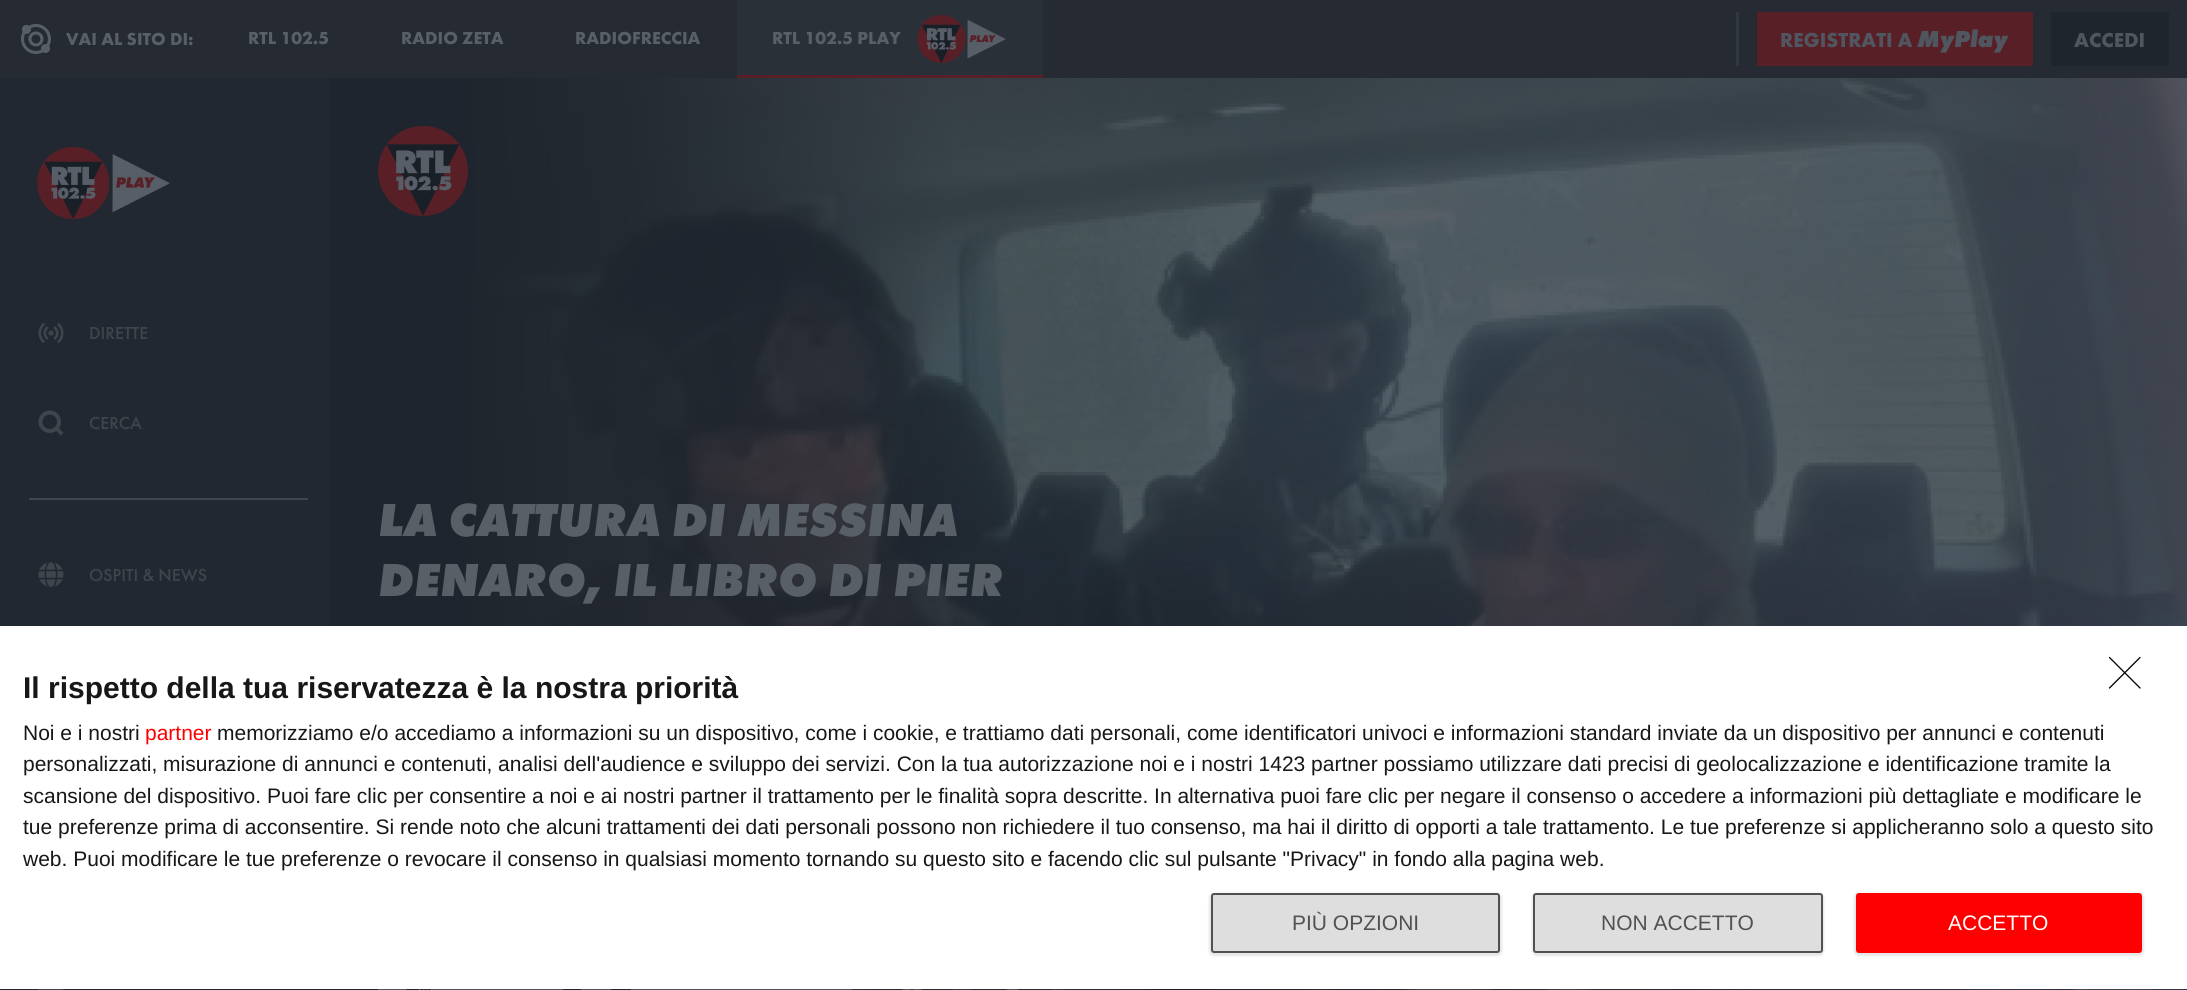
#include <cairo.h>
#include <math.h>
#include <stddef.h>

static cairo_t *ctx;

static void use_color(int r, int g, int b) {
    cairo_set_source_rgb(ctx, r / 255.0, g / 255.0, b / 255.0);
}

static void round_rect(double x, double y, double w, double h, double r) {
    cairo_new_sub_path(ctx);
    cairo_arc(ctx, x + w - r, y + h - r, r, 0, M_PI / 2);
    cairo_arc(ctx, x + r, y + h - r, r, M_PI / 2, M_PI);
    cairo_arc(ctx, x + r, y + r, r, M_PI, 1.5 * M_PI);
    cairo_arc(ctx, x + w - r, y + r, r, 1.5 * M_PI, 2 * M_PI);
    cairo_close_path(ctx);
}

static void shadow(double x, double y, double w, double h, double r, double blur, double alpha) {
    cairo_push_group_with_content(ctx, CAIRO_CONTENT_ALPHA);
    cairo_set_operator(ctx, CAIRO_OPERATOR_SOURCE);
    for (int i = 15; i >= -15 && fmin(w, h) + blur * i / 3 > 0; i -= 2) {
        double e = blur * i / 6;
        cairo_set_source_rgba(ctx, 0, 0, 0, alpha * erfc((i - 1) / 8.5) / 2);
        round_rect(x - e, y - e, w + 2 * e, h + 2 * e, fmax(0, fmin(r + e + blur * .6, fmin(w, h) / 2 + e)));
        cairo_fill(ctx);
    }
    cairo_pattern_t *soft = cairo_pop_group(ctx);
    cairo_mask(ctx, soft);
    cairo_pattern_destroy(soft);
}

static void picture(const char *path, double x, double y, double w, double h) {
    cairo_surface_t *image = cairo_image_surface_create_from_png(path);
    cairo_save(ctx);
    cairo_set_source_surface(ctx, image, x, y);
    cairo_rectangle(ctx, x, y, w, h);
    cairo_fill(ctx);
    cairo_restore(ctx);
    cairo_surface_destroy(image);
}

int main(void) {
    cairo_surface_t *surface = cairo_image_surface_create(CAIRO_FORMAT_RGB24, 2187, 990);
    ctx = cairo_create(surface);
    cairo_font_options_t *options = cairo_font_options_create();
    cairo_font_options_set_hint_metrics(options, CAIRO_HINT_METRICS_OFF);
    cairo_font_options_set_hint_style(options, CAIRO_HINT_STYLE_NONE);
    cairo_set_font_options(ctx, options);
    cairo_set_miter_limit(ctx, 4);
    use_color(37, 42, 51);
    cairo_paint(ctx);
    picture("img1.png", 20, 24, 31, 30);
    cairo_select_font_face(ctx, "Futura PT", CAIRO_FONT_SLANT_NORMAL, CAIRO_FONT_WEIGHT_BOLD);
    cairo_set_font_size(ctx, 18);
    use_color(89, 95, 103);
    cairo_move_to(ctx, 66, 45);
    cairo_show_text(ctx, "VAI AL SITO DI:");
    cairo_move_to(ctx, 248, 44);
    cairo_show_text(ctx, "RTL 102.5");
    cairo_move_to(ctx, 401, 44);
    cairo_show_text(ctx, "RADIO ZETA");
    cairo_move_to(ctx, 575, 44);
    cairo_show_text(ctx, "RADIOFRECCIA");
    use_color(42, 48, 56);
    cairo_rectangle(ctx, 737, 0, 306, 75);
    cairo_fill(ctx);
    use_color(89, 31, 39);
    cairo_rectangle(ctx, 737, 75, 306, 3);
    cairo_fill(ctx);
    use_color(89, 95, 103);
    cairo_move_to(ctx, 772, 44);
    cairo_show_text(ctx, "RTL 102.5 PLAY");
    picture("img2.png", 917, 14, 89, 50);
    use_color(49, 55, 63);
    cairo_rectangle(ctx, 1736, 12, 3, 54);
    cairo_fill(ctx);
    use_color(89, 31, 39);
    cairo_rectangle(ctx, 1757, 12, 276, 54);
    cairo_fill(ctx);
    cairo_set_font_size(ctx, 21);
    use_color(80, 86, 95);
    cairo_move_to(ctx, 1780, 47);
    cairo_show_text(ctx, "REGISTRATI A");
    cairo_select_font_face(ctx, "Futura PT ExtraBold", CAIRO_FONT_SLANT_ITALIC, CAIRO_FONT_WEIGHT_NORMAL);
    cairo_set_font_size(ctx, 24);
    cairo_move_to(ctx, 1917, 47);
    cairo_show_text(ctx, "MyPlay");
    use_color(31, 37, 45);
    cairo_rectangle(ctx, 2051, 12, 118, 54);
    cairo_fill(ctx);
    cairo_select_font_face(ctx, "Futura PT", CAIRO_FONT_SLANT_NORMAL, CAIRO_FONT_WEIGHT_BOLD);
    cairo_set_font_size(ctx, 21);
    use_color(80, 86, 95);
    cairo_move_to(ctx, 2074, 47);
    cairo_show_text(ctx, "ACCEDI");
    use_color(34, 40, 49);
    cairo_rectangle(ctx, 0, 78, 330, 912);
    cairo_fill(ctx);
    picture("img3.png", 37, 146, 133, 74);
    picture("img4.png", 38, 323, 26, 20);
    cairo_select_font_face(ctx, "Futura PT Medium", CAIRO_FONT_SLANT_NORMAL, CAIRO_FONT_WEIGHT_NORMAL);
    cairo_set_font_size(ctx, 18);
    use_color(63, 69, 77);
    cairo_move_to(ctx, 89, 339);
    cairo_show_text(ctx, "DIRETTE");
    picture("img5.png", 38, 410, 26, 26);
    cairo_move_to(ctx, 89, 429);
    cairo_show_text(ctx, "CERCA");
    cairo_rectangle(ctx, 29, 498, 279, 2);
    cairo_fill(ctx);
    picture("img6.png", 38, 562, 26, 25);
    cairo_move_to(ctx, 89, 581);
    cairo_show_text(ctx, "OSPITI & NEWS");
    picture("img7.png", 38, 989, 26, 1);
    use_color(31, 37, 46);
    cairo_rectangle(ctx, 330, 78, 57, 912);
    cairo_fill(ctx);
    picture("img8.png", 387, 78, 1800, 912);
    picture("img9.png", 378, 126, 90, 90);
    cairo_select_font_face(ctx, "Futura PT ExtraBold", CAIRO_FONT_SLANT_ITALIC, CAIRO_FONT_WEIGHT_NORMAL);
    cairo_set_font_size(ctx, 48);
    use_color(89, 95, 103);
    cairo_move_to(ctx, 378, 536);
    cairo_show_text(ctx, "LA CATTURA DI MESSINA");
    cairo_move_to(ctx, 378, 596);
    cairo_show_text(ctx, "DENARO, IL LIBRO DI PIER");
    use_color(80, 86, 95);
    cairo_rectangle(ctx, 378, 989, 185, 1);
    cairo_fill(ctx);
    picture("img10.png", 406, 989, 25, 1);
    cairo_rectangle(ctx, 581, 989, 271, 1);
    cairo_fill(ctx);
    use_color(31, 37, 45);
    cairo_rectangle(ctx, 611, 989, 20, 1);
    cairo_fill(ctx);
    use_color(37, 42, 51);
    cairo_rectangle(ctx, 870, 989, 83, 1);
    cairo_fill(ctx);
    picture("img11.png", 902, 989, 20, 1);
    cairo_rectangle(ctx, 971, 989, 81, 1);
    cairo_fill(ctx);
    picture("img12.png", 1006, 989, 13, 1);
    use_color(255, 255, 255);
    cairo_rectangle(ctx, 0, 626, 2187, 363);
    cairo_fill(ctx);
    cairo_new_path(ctx);
    cairo_move_to(ctx, 2109.5, 657.5);
    cairo_line_to(ctx, 2140, 688);
    cairo_move_to(ctx, 2140, 657.5);
    cairo_line_to(ctx, 2109.5, 688);
    use_color(0, 0, 0);
    cairo_set_line_width(ctx, 1.3);
    cairo_set_line_cap(ctx, CAIRO_LINE_CAP_ROUND);
    cairo_set_line_join(ctx, CAIRO_LINE_JOIN_ROUND);
    cairo_stroke(ctx);
    cairo_select_font_face(ctx, "Liberation Sans", CAIRO_FONT_SLANT_NORMAL, CAIRO_FONT_WEIGHT_BOLD);
    cairo_set_font_size(ctx, 30);
    use_color(23, 23, 23);
    cairo_move_to(ctx, 23, 698);
    cairo_show_text(ctx, "Il rispetto della tua riservatezza è la nostra priorità");
    cairo_select_font_face(ctx, "Liberation Sans", CAIRO_FONT_SLANT_NORMAL, CAIRO_FONT_WEIGHT_NORMAL);
    cairo_set_font_size(ctx, 21);
    cairo_move_to(ctx, 23, 740);
    cairo_show_text(ctx, "Noi e i nostri");
    use_color(255, 0, 0);
    cairo_move_to(ctx, 145, 740);
    cairo_show_text(ctx, "partner");
    use_color(23, 23, 23);
    cairo_move_to(ctx, 217, 740);
    cairo_show_text(ctx, "memorizziamo e/o accediamo a informazioni su un dispositivo, come i cookie, e trattiamo dati personali, come identificatori univoci e informazioni standard inviate da un dispositivo per annunci e contenuti");
    cairo_move_to(ctx, 23, 771);
    cairo_show_text(ctx, "personalizzati, misurazione di annunci e contenuti, analisi dell'audience e sviluppo dei servizi. Con la tua autorizzazione noi e i nostri 1423 partner possiamo utilizzare dati precisi di geolocalizzazione e identificazione tramite la");
    cairo_move_to(ctx, 23, 803);
    cairo_show_text(ctx, "scansione del dispositivo. Puoi fare clic per consentire a noi e ai nostri partner il trattamento per le finalità sopra descritte. In alternativa puoi fare clic per negare il consenso o accedere a informazioni più dettagliate e modificare le");
    cairo_move_to(ctx, 23, 834);
    cairo_show_text(ctx, "tue preferenze prima di acconsentire. Si rende noto che alcuni trattamenti dei dati personali possono non richiedere il tuo consenso, ma hai il diritto di opporti a tale trattamento. Le tue preferenze si applicheranno solo a questo sito");
    cairo_move_to(ctx, 23, 866);
    cairo_show_text(ctx, "web. Puoi modificare le tue preferenze o revocare il consenso in qualsiasi momento tornando su questo sito e facendo clic sul pulsante \"Privacy\" in fondo alla pagina web.");
    use_color(0, 0, 0);
    shadow(1209, 893, 293, 63, 5, 1, 0.1);
    use_color(222, 222, 222);
    round_rect(1212, 894, 287, 58, 2);
    cairo_fill_preserve(ctx);
    use_color(81, 81, 81);
    cairo_set_line_width(ctx, 2);
    cairo_set_line_cap(ctx, CAIRO_LINE_CAP_BUTT);
    cairo_set_line_join(ctx, CAIRO_LINE_JOIN_MITER);
    cairo_stroke(ctx);
    cairo_move_to(ctx, 1292, 930);
    cairo_show_text(ctx, "PIÙ OPZIONI");
    use_color(0, 0, 0);
    shadow(1532, 893, 292, 63, 5, 1, 0.1);
    use_color(222, 222, 222);
    round_rect(1534, 894, 288, 58, 2);
    cairo_fill_preserve(ctx);
    use_color(81, 81, 81);
    cairo_stroke(ctx);
    cairo_move_to(ctx, 1601, 930);
    cairo_show_text(ctx, "NON ACCETTO");
    use_color(0, 0, 0);
    shadow(1854, 893, 290, 63, 5, 1, 0.1);
    use_color(255, 0, 0);
    round_rect(1856, 893, 286, 60, 3);
    cairo_fill(ctx);
    use_color(255, 255, 255);
    cairo_move_to(ctx, 1948, 930);
    cairo_show_text(ctx, "ACCETTO");
    cairo_surface_write_to_png(surface, "result.png");
    cairo_font_options_destroy(options);
    cairo_destroy(ctx);
    cairo_surface_destroy(surface);
    return 0;
}
